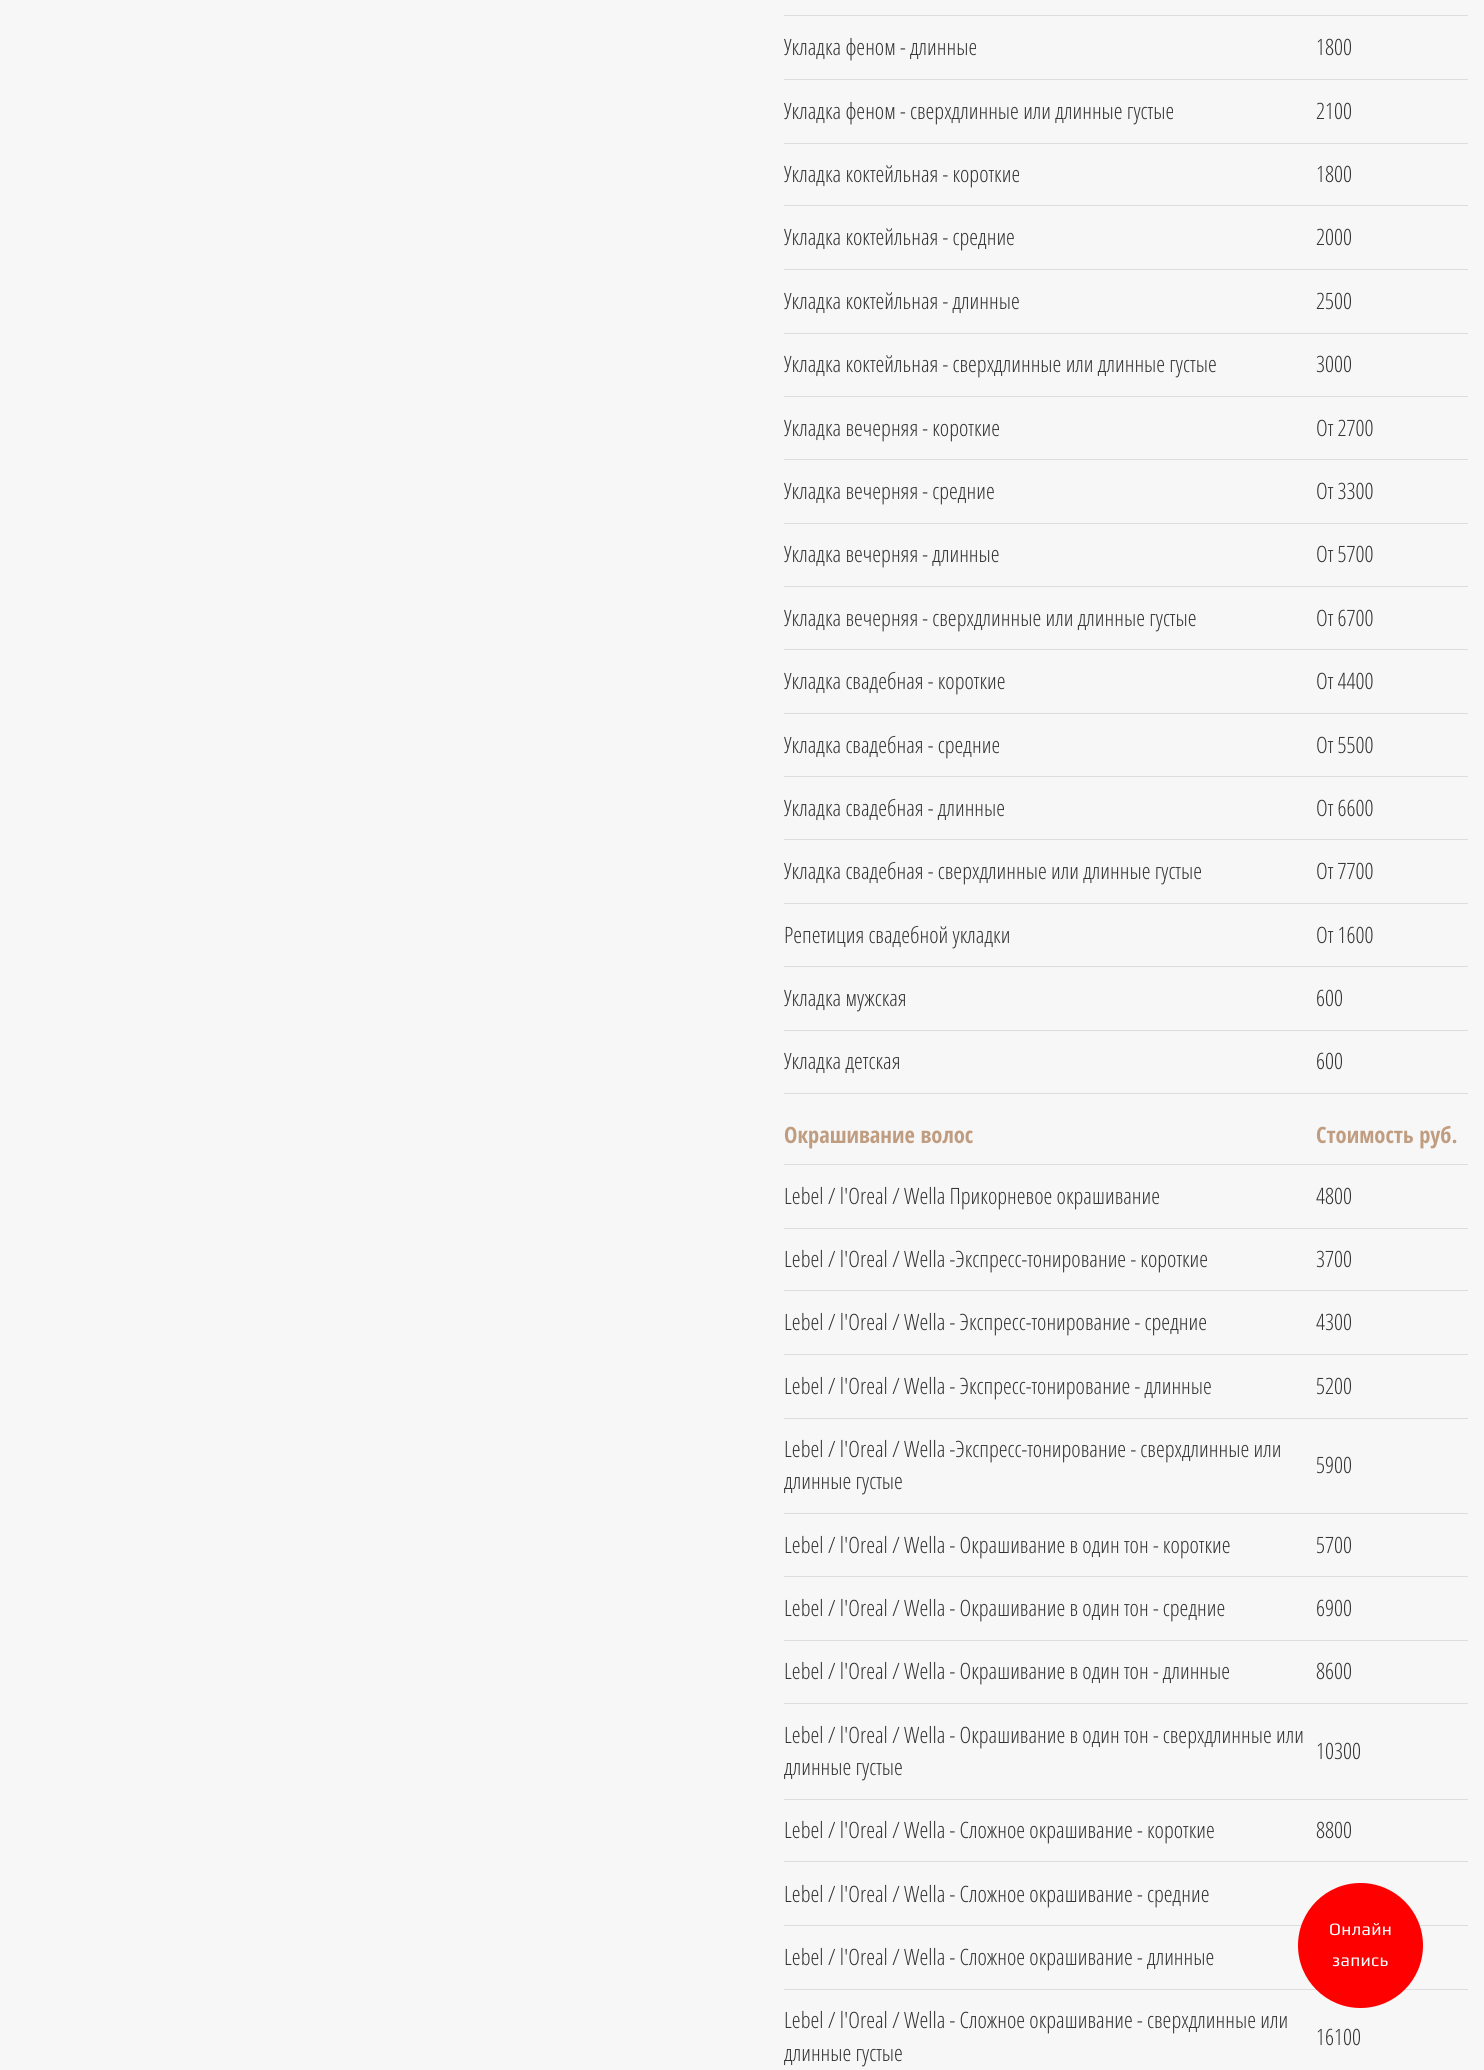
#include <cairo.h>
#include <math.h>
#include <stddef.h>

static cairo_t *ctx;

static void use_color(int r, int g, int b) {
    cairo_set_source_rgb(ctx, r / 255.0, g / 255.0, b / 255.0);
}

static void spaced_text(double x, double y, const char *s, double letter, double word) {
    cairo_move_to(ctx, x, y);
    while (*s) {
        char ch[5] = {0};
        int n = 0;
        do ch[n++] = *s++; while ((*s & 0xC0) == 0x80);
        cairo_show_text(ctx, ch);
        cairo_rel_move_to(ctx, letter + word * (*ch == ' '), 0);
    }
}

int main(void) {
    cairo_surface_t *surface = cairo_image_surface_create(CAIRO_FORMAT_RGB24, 1484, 2070);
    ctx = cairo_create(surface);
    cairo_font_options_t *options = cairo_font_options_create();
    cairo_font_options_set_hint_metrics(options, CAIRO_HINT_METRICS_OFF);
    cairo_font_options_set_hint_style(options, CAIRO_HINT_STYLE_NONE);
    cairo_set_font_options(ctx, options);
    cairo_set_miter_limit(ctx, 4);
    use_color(247, 247, 247);
    cairo_paint(ctx);
    use_color(221, 221, 221);
    cairo_rectangle(ctx, 784, 15, 684, 1);
    cairo_fill(ctx);
    cairo_rectangle(ctx, 784, 79, 684, 1);
    cairo_fill(ctx);
    cairo_select_font_face(ctx, "Open Sans Condensed Light", CAIRO_FONT_SLANT_NORMAL, CAIRO_FONT_WEIGHT_NORMAL);
    cairo_set_font_size(ctx, 22.5);
    use_color(51, 51, 51);
    cairo_move_to(ctx, 784, 55);
    cairo_show_text(ctx, "Укладка феном - длинные");
    cairo_move_to(ctx, 1316, 55);
    cairo_show_text(ctx, "1800");
    use_color(221, 221, 221);
    cairo_rectangle(ctx, 784, 143, 684, 1);
    cairo_fill(ctx);
    use_color(51, 51, 51);
    cairo_move_to(ctx, 784, 119);
    cairo_show_text(ctx, "Укладка феном - сверхдлинные или длинные густые");
    cairo_move_to(ctx, 1316, 119);
    cairo_show_text(ctx, "2100");
    use_color(221, 221, 221);
    cairo_rectangle(ctx, 784, 205, 684, 1);
    cairo_fill(ctx);
    use_color(51, 51, 51);
    cairo_move_to(ctx, 784, 182);
    cairo_show_text(ctx, "Укладка коктейльная - короткие");
    cairo_move_to(ctx, 1316, 182);
    cairo_show_text(ctx, "1800");
    use_color(221, 221, 221);
    cairo_rectangle(ctx, 784, 269, 684, 1);
    cairo_fill(ctx);
    use_color(51, 51, 51);
    cairo_move_to(ctx, 784, 245);
    cairo_show_text(ctx, "Укладка коктейльная - средние");
    cairo_move_to(ctx, 1316, 245);
    cairo_show_text(ctx, "2000");
    use_color(221, 221, 221);
    cairo_rectangle(ctx, 784, 333, 684, 1);
    cairo_fill(ctx);
    use_color(51, 51, 51);
    cairo_move_to(ctx, 784, 309);
    cairo_show_text(ctx, "Укладка коктейльная - длинные");
    cairo_move_to(ctx, 1316, 309);
    cairo_show_text(ctx, "2500");
    use_color(221, 221, 221);
    cairo_rectangle(ctx, 784, 396, 684, 1);
    cairo_fill(ctx);
    use_color(51, 51, 51);
    cairo_move_to(ctx, 784, 372);
    cairo_show_text(ctx, "Укладка коктейльная - сверхдлинные или длинные густые");
    cairo_move_to(ctx, 1316, 372);
    cairo_show_text(ctx, "3000");
    use_color(221, 221, 221);
    cairo_rectangle(ctx, 784, 459, 684, 1);
    cairo_fill(ctx);
    use_color(51, 51, 51);
    cairo_move_to(ctx, 784, 436);
    cairo_show_text(ctx, "Укладка вечерняя - короткие");
    cairo_move_to(ctx, 1316, 436);
    cairo_show_text(ctx, "От 2700");
    use_color(221, 221, 221);
    cairo_rectangle(ctx, 784, 523, 684, 1);
    cairo_fill(ctx);
    use_color(51, 51, 51);
    cairo_move_to(ctx, 784, 499);
    cairo_show_text(ctx, "Укладка вечерняя - средние");
    cairo_move_to(ctx, 1316, 499);
    cairo_show_text(ctx, "От 3300");
    use_color(221, 221, 221);
    cairo_rectangle(ctx, 784, 586, 684, 1);
    cairo_fill(ctx);
    use_color(51, 51, 51);
    cairo_move_to(ctx, 784, 562);
    cairo_show_text(ctx, "Укладка вечерняя - длинные");
    cairo_move_to(ctx, 1316, 562);
    cairo_show_text(ctx, "От 5700");
    use_color(221, 221, 221);
    cairo_rectangle(ctx, 784, 649, 684, 1);
    cairo_fill(ctx);
    use_color(51, 51, 51);
    cairo_move_to(ctx, 784, 626);
    cairo_show_text(ctx, "Укладка вечерняя - сверхдлинные или длинные густые");
    cairo_move_to(ctx, 1316, 626);
    cairo_show_text(ctx, "От 6700");
    use_color(221, 221, 221);
    cairo_rectangle(ctx, 784, 713, 684, 1);
    cairo_fill(ctx);
    use_color(51, 51, 51);
    cairo_move_to(ctx, 784, 689);
    cairo_show_text(ctx, "Укладка свадебная - короткие");
    cairo_move_to(ctx, 1316, 689);
    cairo_show_text(ctx, "От 4400");
    use_color(221, 221, 221);
    cairo_rectangle(ctx, 784, 776, 684, 1);
    cairo_fill(ctx);
    use_color(51, 51, 51);
    cairo_move_to(ctx, 784, 753);
    cairo_show_text(ctx, "Укладка свадебная - средние");
    cairo_move_to(ctx, 1316, 753);
    cairo_show_text(ctx, "От 5500");
    use_color(221, 221, 221);
    cairo_rectangle(ctx, 784, 839, 684, 1);
    cairo_fill(ctx);
    use_color(51, 51, 51);
    cairo_move_to(ctx, 784, 816);
    cairo_show_text(ctx, "Укладка свадебная - длинные");
    cairo_move_to(ctx, 1316, 816);
    cairo_show_text(ctx, "От 6600");
    use_color(221, 221, 221);
    cairo_rectangle(ctx, 784, 903, 684, 1);
    cairo_fill(ctx);
    use_color(51, 51, 51);
    cairo_move_to(ctx, 784, 879);
    cairo_show_text(ctx, "Укладка свадебная - сверхдлинные или длинные густые");
    cairo_move_to(ctx, 1316, 879);
    cairo_show_text(ctx, "От 7700");
    use_color(221, 221, 221);
    cairo_rectangle(ctx, 784, 966, 684, 1);
    cairo_fill(ctx);
    use_color(51, 51, 51);
    cairo_move_to(ctx, 784, 943);
    cairo_show_text(ctx, "Репетиция свадебной укладки");
    cairo_move_to(ctx, 1316, 943);
    cairo_show_text(ctx, "От 1600");
    use_color(221, 221, 221);
    cairo_rectangle(ctx, 784, 1030, 684, 1);
    cairo_fill(ctx);
    use_color(51, 51, 51);
    cairo_move_to(ctx, 784, 1006);
    cairo_show_text(ctx, "Укладка мужская");
    cairo_move_to(ctx, 1316, 1006);
    cairo_show_text(ctx, "600");
    use_color(221, 221, 221);
    cairo_rectangle(ctx, 784, 1093, 684, 1);
    cairo_fill(ctx);
    use_color(51, 51, 51);
    cairo_move_to(ctx, 784, 1069);
    cairo_show_text(ctx, "Укладка детская");
    cairo_move_to(ctx, 1316, 1069);
    cairo_show_text(ctx, "600");
    use_color(221, 221, 221);
    cairo_rectangle(ctx, 784, 1164, 684, 1);
    cairo_fill(ctx);
    cairo_select_font_face(ctx, "Open Sans Condensed", CAIRO_FONT_SLANT_NORMAL, CAIRO_FONT_WEIGHT_BOLD);
    use_color(192, 157, 128);
    cairo_move_to(ctx, 784, 1143);
    cairo_show_text(ctx, "Окрашивание волос");
    cairo_move_to(ctx, 1316, 1143);
    cairo_show_text(ctx, "Стоимость руб.");
    use_color(221, 221, 221);
    cairo_rectangle(ctx, 784, 1228, 684, 1);
    cairo_fill(ctx);
    cairo_select_font_face(ctx, "Open Sans Condensed Light", CAIRO_FONT_SLANT_NORMAL, CAIRO_FONT_WEIGHT_NORMAL);
    use_color(51, 51, 51);
    cairo_move_to(ctx, 784, 1204);
    cairo_show_text(ctx, "Lebel / l'Oreal / Wella Прикорневое окрашивание");
    cairo_move_to(ctx, 1316, 1204);
    cairo_show_text(ctx, "4800");
    use_color(221, 221, 221);
    cairo_rectangle(ctx, 784, 1290, 684, 1);
    cairo_fill(ctx);
    use_color(51, 51, 51);
    cairo_move_to(ctx, 784, 1267);
    cairo_show_text(ctx, "Lebel / l'Oreal / Wella -Экспресс-тонирование - короткие");
    cairo_move_to(ctx, 1316, 1267);
    cairo_show_text(ctx, "3700");
    use_color(221, 221, 221);
    cairo_rectangle(ctx, 784, 1354, 684, 1);
    cairo_fill(ctx);
    use_color(51, 51, 51);
    cairo_move_to(ctx, 784, 1330);
    cairo_show_text(ctx, "Lebel / l'Oreal / Wella - Экспресс-тонирование - средние");
    cairo_move_to(ctx, 1316, 1330);
    cairo_show_text(ctx, "4300");
    use_color(221, 221, 221);
    cairo_rectangle(ctx, 784, 1418, 684, 1);
    cairo_fill(ctx);
    use_color(51, 51, 51);
    cairo_move_to(ctx, 784, 1394);
    cairo_show_text(ctx, "Lebel / l'Oreal / Wella - Экспресс-тонирование - длинные");
    cairo_move_to(ctx, 1316, 1394);
    cairo_show_text(ctx, "5200");
    use_color(221, 221, 221);
    cairo_rectangle(ctx, 784, 1513, 684, 1);
    cairo_fill(ctx);
    use_color(51, 51, 51);
    cairo_move_to(ctx, 784, 1457);
    cairo_show_text(ctx, "Lebel / l'Oreal / Wella -Экспресс-тонирование - сверхдлинные или");
    cairo_move_to(ctx, 784, 1489);
    cairo_show_text(ctx, "длинные густые");
    cairo_move_to(ctx, 1316, 1473);
    cairo_show_text(ctx, "5900");
    use_color(221, 221, 221);
    cairo_rectangle(ctx, 784, 1576, 684, 1);
    cairo_fill(ctx);
    use_color(51, 51, 51);
    cairo_move_to(ctx, 784, 1553);
    cairo_show_text(ctx, "Lebel / l'Oreal / Wella - Окрашивание в один тон - короткие");
    cairo_move_to(ctx, 1316, 1553);
    cairo_show_text(ctx, "5700");
    use_color(221, 221, 221);
    cairo_rectangle(ctx, 784, 1640, 684, 1);
    cairo_fill(ctx);
    use_color(51, 51, 51);
    cairo_move_to(ctx, 784, 1616);
    cairo_show_text(ctx, "Lebel / l'Oreal / Wella - Окрашивание в один тон - средние");
    cairo_move_to(ctx, 1316, 1616);
    cairo_show_text(ctx, "6900");
    use_color(221, 221, 221);
    cairo_rectangle(ctx, 784, 1703, 684, 1);
    cairo_fill(ctx);
    use_color(51, 51, 51);
    cairo_move_to(ctx, 784, 1679);
    cairo_show_text(ctx, "Lebel / l'Oreal / Wella - Окрашивание в один тон - длинные");
    cairo_move_to(ctx, 1316, 1679);
    cairo_show_text(ctx, "8600");
    use_color(221, 221, 221);
    cairo_rectangle(ctx, 784, 1799, 684, 1);
    cairo_fill(ctx);
    use_color(51, 51, 51);
    cairo_move_to(ctx, 784, 1743);
    cairo_show_text(ctx, "Lebel / l'Oreal / Wella - Окрашивание в один тон - сверхдлинные или");
    cairo_move_to(ctx, 784, 1775);
    cairo_show_text(ctx, "длинные густые");
    cairo_move_to(ctx, 1316, 1759);
    cairo_show_text(ctx, "10300");
    use_color(221, 221, 221);
    cairo_rectangle(ctx, 784, 1861, 684, 1);
    cairo_fill(ctx);
    use_color(51, 51, 51);
    cairo_move_to(ctx, 784, 1838);
    cairo_show_text(ctx, "Lebel / l'Oreal / Wella - Сложное окрашивание - короткие");
    cairo_move_to(ctx, 1316, 1838);
    cairo_show_text(ctx, "8800");
    use_color(221, 221, 221);
    cairo_rectangle(ctx, 784, 1925, 684, 1);
    cairo_fill(ctx);
    use_color(51, 51, 51);
    cairo_move_to(ctx, 784, 1902);
    cairo_show_text(ctx, "Lebel / l'Oreal / Wella - Сложное окрашивание - средние");
    use_color(221, 221, 221);
    cairo_rectangle(ctx, 784, 1989, 684, 1);
    cairo_fill(ctx);
    use_color(51, 51, 51);
    cairo_move_to(ctx, 784, 1965);
    cairo_show_text(ctx, "Lebel / l'Oreal / Wella - Сложное окрашивание - длинные");
    cairo_move_to(ctx, 784, 2028);
    cairo_show_text(ctx, "Lebel / l'Oreal / Wella - Сложное окрашивание - сверхдлинные или");
    cairo_move_to(ctx, 784, 2061);
    cairo_show_text(ctx, "длинные густые");
    cairo_move_to(ctx, 1316, 2045);
    cairo_show_text(ctx, "16100");
    use_color(255, 0, 0);
    cairo_new_path(ctx);
    cairo_arc(ctx, 1360.5, 1945.5, 62.5, 0, 2 * M_PI);
    cairo_fill(ctx);
    cairo_select_font_face(ctx, "Play", CAIRO_FONT_SLANT_NORMAL, CAIRO_FONT_WEIGHT_NORMAL);
    cairo_set_font_size(ctx, 17.5);
    use_color(255, 255, 255);
    spaced_text(1329, 1935, "Онлайн", 0.25, 0);
    spaced_text(1332, 1966, "запись", 0.25, 0);
    cairo_surface_write_to_png(surface, "result.png");
    cairo_font_options_destroy(options);
    cairo_destroy(ctx);
    cairo_surface_destroy(surface);
    return 0;
}
